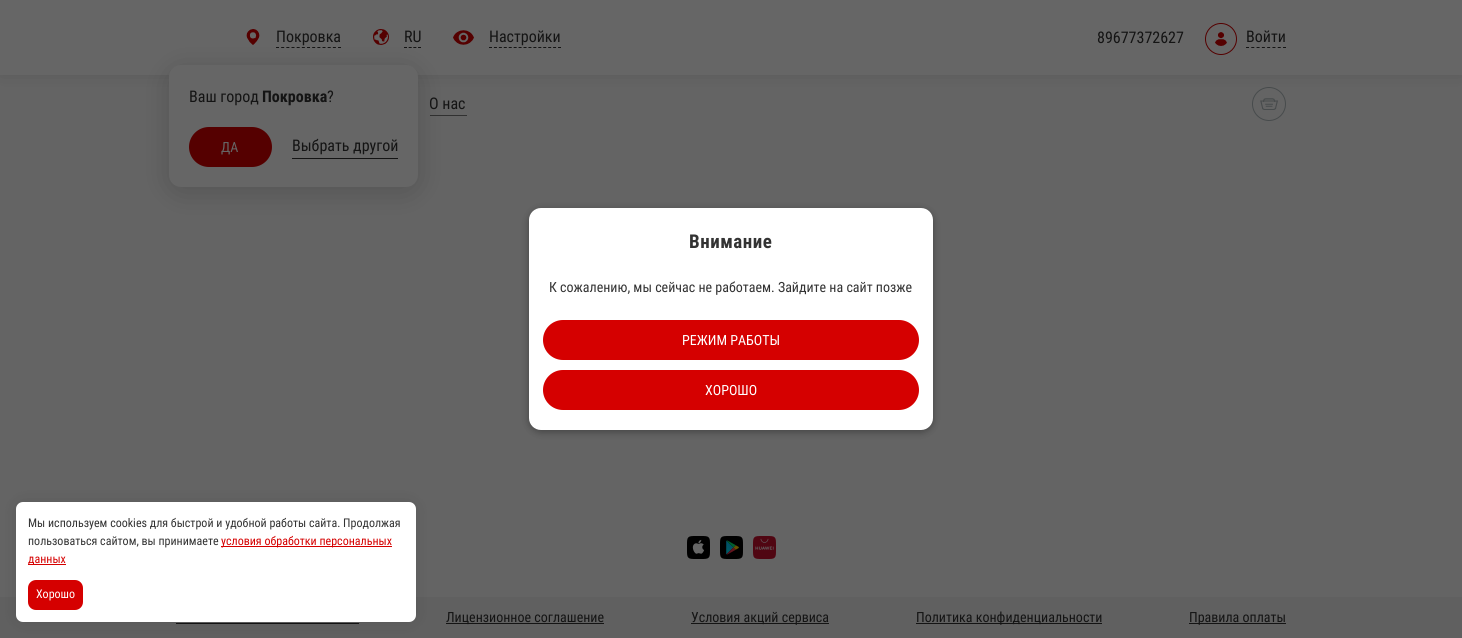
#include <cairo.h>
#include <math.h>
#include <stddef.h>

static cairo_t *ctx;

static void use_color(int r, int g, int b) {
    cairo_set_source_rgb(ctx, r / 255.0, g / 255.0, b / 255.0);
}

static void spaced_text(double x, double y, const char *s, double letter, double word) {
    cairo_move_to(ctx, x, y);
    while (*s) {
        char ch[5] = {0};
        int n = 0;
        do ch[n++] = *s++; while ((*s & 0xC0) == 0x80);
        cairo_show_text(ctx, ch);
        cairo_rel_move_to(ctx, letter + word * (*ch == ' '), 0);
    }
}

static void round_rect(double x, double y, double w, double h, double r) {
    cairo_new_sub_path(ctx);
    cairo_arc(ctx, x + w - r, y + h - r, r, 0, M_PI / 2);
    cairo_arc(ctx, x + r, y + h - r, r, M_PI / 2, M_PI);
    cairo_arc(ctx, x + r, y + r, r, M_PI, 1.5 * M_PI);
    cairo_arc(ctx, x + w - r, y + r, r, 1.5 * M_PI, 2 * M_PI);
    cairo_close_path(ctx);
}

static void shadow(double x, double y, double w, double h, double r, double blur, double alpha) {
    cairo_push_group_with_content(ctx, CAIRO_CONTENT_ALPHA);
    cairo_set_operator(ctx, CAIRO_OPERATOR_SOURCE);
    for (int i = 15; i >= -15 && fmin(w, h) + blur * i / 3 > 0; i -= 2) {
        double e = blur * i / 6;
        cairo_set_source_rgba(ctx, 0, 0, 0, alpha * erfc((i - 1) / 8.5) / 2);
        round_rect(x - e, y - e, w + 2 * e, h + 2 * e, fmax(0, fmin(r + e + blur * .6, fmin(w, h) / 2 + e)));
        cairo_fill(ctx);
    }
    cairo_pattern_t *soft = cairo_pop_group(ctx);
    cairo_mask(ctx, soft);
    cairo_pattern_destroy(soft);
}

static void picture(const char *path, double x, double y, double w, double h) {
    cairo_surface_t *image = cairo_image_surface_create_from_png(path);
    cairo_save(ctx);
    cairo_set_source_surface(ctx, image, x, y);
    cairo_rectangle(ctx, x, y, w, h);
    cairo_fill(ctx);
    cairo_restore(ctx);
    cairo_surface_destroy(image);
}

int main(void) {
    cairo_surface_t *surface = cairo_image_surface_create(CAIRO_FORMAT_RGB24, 1462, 638);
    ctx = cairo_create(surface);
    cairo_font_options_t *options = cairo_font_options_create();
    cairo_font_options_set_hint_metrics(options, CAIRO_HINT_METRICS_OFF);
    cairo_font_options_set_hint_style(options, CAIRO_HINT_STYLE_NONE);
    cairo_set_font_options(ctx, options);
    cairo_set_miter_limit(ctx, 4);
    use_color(100, 100, 100);
    cairo_paint(ctx);
    use_color(0, 0, 0);
    shadow(0, 0, 1462, 75, 0, 7.5, 0.1);
    use_color(102, 102, 102);
    cairo_rectangle(ctx, 0, 0, 1462, 75);
    cairo_fill(ctx);
    picture("img1.png", 246, 29, 14, 16);
    cairo_new_path(ctx);
    cairo_move_to(ctx, 276, 47.5);
    cairo_line_to(ctx, 341, 47.5);
    use_color(20, 20, 20);
    cairo_set_line_width(ctx, 1);
    cairo_set_dash(ctx, (double[]){3, 2.17}, 2, 0);
    cairo_stroke(ctx);
    cairo_select_font_face(ctx, "Roboto Condensed", CAIRO_FONT_SLANT_NORMAL, CAIRO_FONT_WEIGHT_NORMAL);
    cairo_set_font_size(ctx, 16);
    cairo_move_to(ctx, 276, 42);
    cairo_show_text(ctx, "Покровка");
    picture("img2.png", 373, 29, 16, 16);
    cairo_new_path(ctx);
    cairo_move_to(ctx, 404, 47.5);
    cairo_line_to(ctx, 421, 47.5);
    cairo_set_dash(ctx, (double[]){3, 1.67}, 2, 0);
    cairo_stroke(ctx);
    picture("img3.png", 453, 30, 21, 15);
    use_color(49, 49, 49);
    cairo_rectangle(ctx, 430, 115, 37, 1);
    cairo_fill(ctx);
    use_color(0, 0, 0);
    shadow(169, 70, 249, 122, 12, 15, 0.16);
    use_color(102, 102, 102);
    round_rect(169, 65, 249, 122, 12);
    cairo_fill(ctx);
    use_color(20, 20, 20);
    cairo_move_to(ctx, 189, 102);
    cairo_show_text(ctx, "Ваш город");
    cairo_select_font_face(ctx, "Roboto Condensed", CAIRO_FONT_SLANT_NORMAL, CAIRO_FONT_WEIGHT_BOLD);
    cairo_move_to(ctx, 262, 102);
    cairo_show_text(ctx, "Покровка");
    cairo_select_font_face(ctx, "Roboto Condensed", CAIRO_FONT_SLANT_NORMAL, CAIRO_FONT_WEIGHT_NORMAL);
    cairo_move_to(ctx, 327, 102);
    cairo_show_text(ctx, "?");
    use_color(85, 0, 0);
    round_rect(189, 127, 83, 40, 20);
    cairo_fill(ctx);
    cairo_set_font_size(ctx, 14);
    use_color(102, 102, 102);
    cairo_move_to(ctx, 221, 152);
    cairo_show_text(ctx, "ДА");
    use_color(20, 20, 20);
    cairo_rectangle(ctx, 292, 158, 106, 1);
    cairo_fill(ctx);
    cairo_set_font_size(ctx, 16);
    cairo_move_to(ctx, 292, 151);
    cairo_show_text(ctx, "Выбрать другой");
    cairo_move_to(ctx, 404, 42);
    cairo_show_text(ctx, "RU");
    cairo_new_path(ctx);
    cairo_move_to(ctx, 489, 47.5);
    cairo_line_to(ctx, 561, 47.5);
    cairo_set_dash(ctx, (double[]){3, 1.93}, 2, 0);
    cairo_stroke(ctx);
    cairo_move_to(ctx, 489, 42);
    cairo_show_text(ctx, "Настройки");
    cairo_move_to(ctx, 1097, 43);
    cairo_show_text(ctx, "89677372627");
    cairo_new_path(ctx);
    cairo_arc(ctx, 1221, 39, 15.5, 0, 2 * M_PI);
    use_color(85, 0, 0);
    cairo_set_dash(ctx, NULL, 0, 0);
    cairo_stroke(ctx);
    picture("img4.png", 1215, 32, 12, 14);
    cairo_new_path(ctx);
    cairo_move_to(ctx, 1246, 47.5);
    cairo_line_to(ctx, 1286, 47.5);
    use_color(20, 20, 20);
    cairo_set_dash(ctx, (double[]){3, 2.29}, 2, 0);
    cairo_stroke(ctx);
    cairo_move_to(ctx, 1246, 42);
    cairo_show_text(ctx, "Войти");
    cairo_move_to(ctx, 429, 109);
    cairo_show_text(ctx, "О нас");
    cairo_new_path(ctx);
    cairo_arc(ctx, 1269, 104, 16.5, 0, 2 * M_PI);
    use_color(71, 75, 76);
    cairo_set_dash(ctx, NULL, 0, 0);
    cairo_stroke(ctx);
    picture("img5.png", 1260, 98, 18, 12);
    use_color(0, 0, 0);
    shadow(529, 210, 404, 222, 12, 4, 0.33);
    use_color(255, 255, 255);
    round_rect(529, 208, 404, 222, 12);
    cairo_fill(ctx);
    cairo_select_font_face(ctx, "Roboto Condensed", CAIRO_FONT_SLANT_NORMAL, CAIRO_FONT_WEIGHT_BOLD);
    cairo_set_font_size(ctx, 19);
    use_color(51, 51, 51);
    spaced_text(689, 248, "Внимание", 0.5, 0);
    cairo_select_font_face(ctx, "Roboto Condensed", CAIRO_FONT_SLANT_NORMAL, CAIRO_FONT_WEIGHT_NORMAL);
    cairo_set_font_size(ctx, 14);
    cairo_move_to(ctx, 549, 292);
    cairo_show_text(ctx, "К сожалению, мы сейчас не работаем. Зайдите на сайт позже");
    use_color(213, 0, 0);
    round_rect(543, 320, 376, 40, 20);
    cairo_fill(ctx);
    use_color(255, 255, 255);
    cairo_move_to(ctx, 682, 345);
    cairo_show_text(ctx, "РЕЖИМ РАБОТЫ");
    use_color(213, 0, 0);
    round_rect(543, 370, 376, 40, 20);
    cairo_fill(ctx);
    use_color(255, 255, 255);
    cairo_move_to(ctx, 705, 395);
    cairo_show_text(ctx, "ХОРОШО");
    use_color(96, 96, 96);
    cairo_rectangle(ctx, 0, 597, 1462, 41);
    cairo_fill(ctx);
    use_color(20, 20, 20);
    cairo_rectangle(ctx, 176, 623, 183, 1);
    cairo_fill(ctx);
    use_color(0, 0, 0);
    shadow(16, 502, 400, 120, 7, 7.5, 0.1);
    use_color(255, 255, 255);
    round_rect(16, 502, 400, 120, 7);
    cairo_fill(ctx);
    cairo_set_font_size(ctx, 12);
    use_color(51, 51, 51);
    cairo_move_to(ctx, 28, 527);
    cairo_show_text(ctx, "Мы используем cookies для быстрой и удобной работы сайта. Продолжая");
    cairo_move_to(ctx, 28, 545);
    cairo_show_text(ctx, "пользоваться сайтом, вы принимаете");
    use_color(213, 0, 0);
    cairo_rectangle(ctx, 221, 546, 171, 1);
    cairo_fill(ctx);
    cairo_move_to(ctx, 221, 545);
    cairo_show_text(ctx, "условия обработки персональных");
    cairo_rectangle(ctx, 28, 564, 38, 1);
    cairo_fill(ctx);
    cairo_move_to(ctx, 28, 563);
    cairo_show_text(ctx, "данных");
    round_rect(28, 580, 55, 30, 8);
    cairo_fill(ctx);
    use_color(255, 255, 255);
    cairo_move_to(ctx, 36, 598);
    cairo_show_text(ctx, "Хорошо");
    picture("img6.png", 687, 536, 23, 23);
    picture("img7.png", 720, 536, 23, 23);
    picture("img8.png", 753, 536, 23, 23);
    use_color(20, 20, 20);
    cairo_rectangle(ctx, 446, 623, 158, 1);
    cairo_fill(ctx);
    cairo_set_font_size(ctx, 14);
    cairo_move_to(ctx, 446, 622);
    cairo_show_text(ctx, "Лицензионное соглашение");
    cairo_rectangle(ctx, 691, 623, 138, 1);
    cairo_fill(ctx);
    cairo_move_to(ctx, 691, 622);
    cairo_show_text(ctx, "Условия акций сервиса");
    cairo_rectangle(ctx, 916, 623, 186, 1);
    cairo_fill(ctx);
    cairo_move_to(ctx, 916, 622);
    cairo_show_text(ctx, "Политика конфиденциальности");
    cairo_rectangle(ctx, 1189, 623, 97, 1);
    cairo_fill(ctx);
    cairo_move_to(ctx, 1189, 622);
    cairo_show_text(ctx, "Правила оплаты");
    cairo_surface_write_to_png(surface, "result.png");
    cairo_font_options_destroy(options);
    cairo_destroy(ctx);
    cairo_surface_destroy(surface);
    return 0;
}
